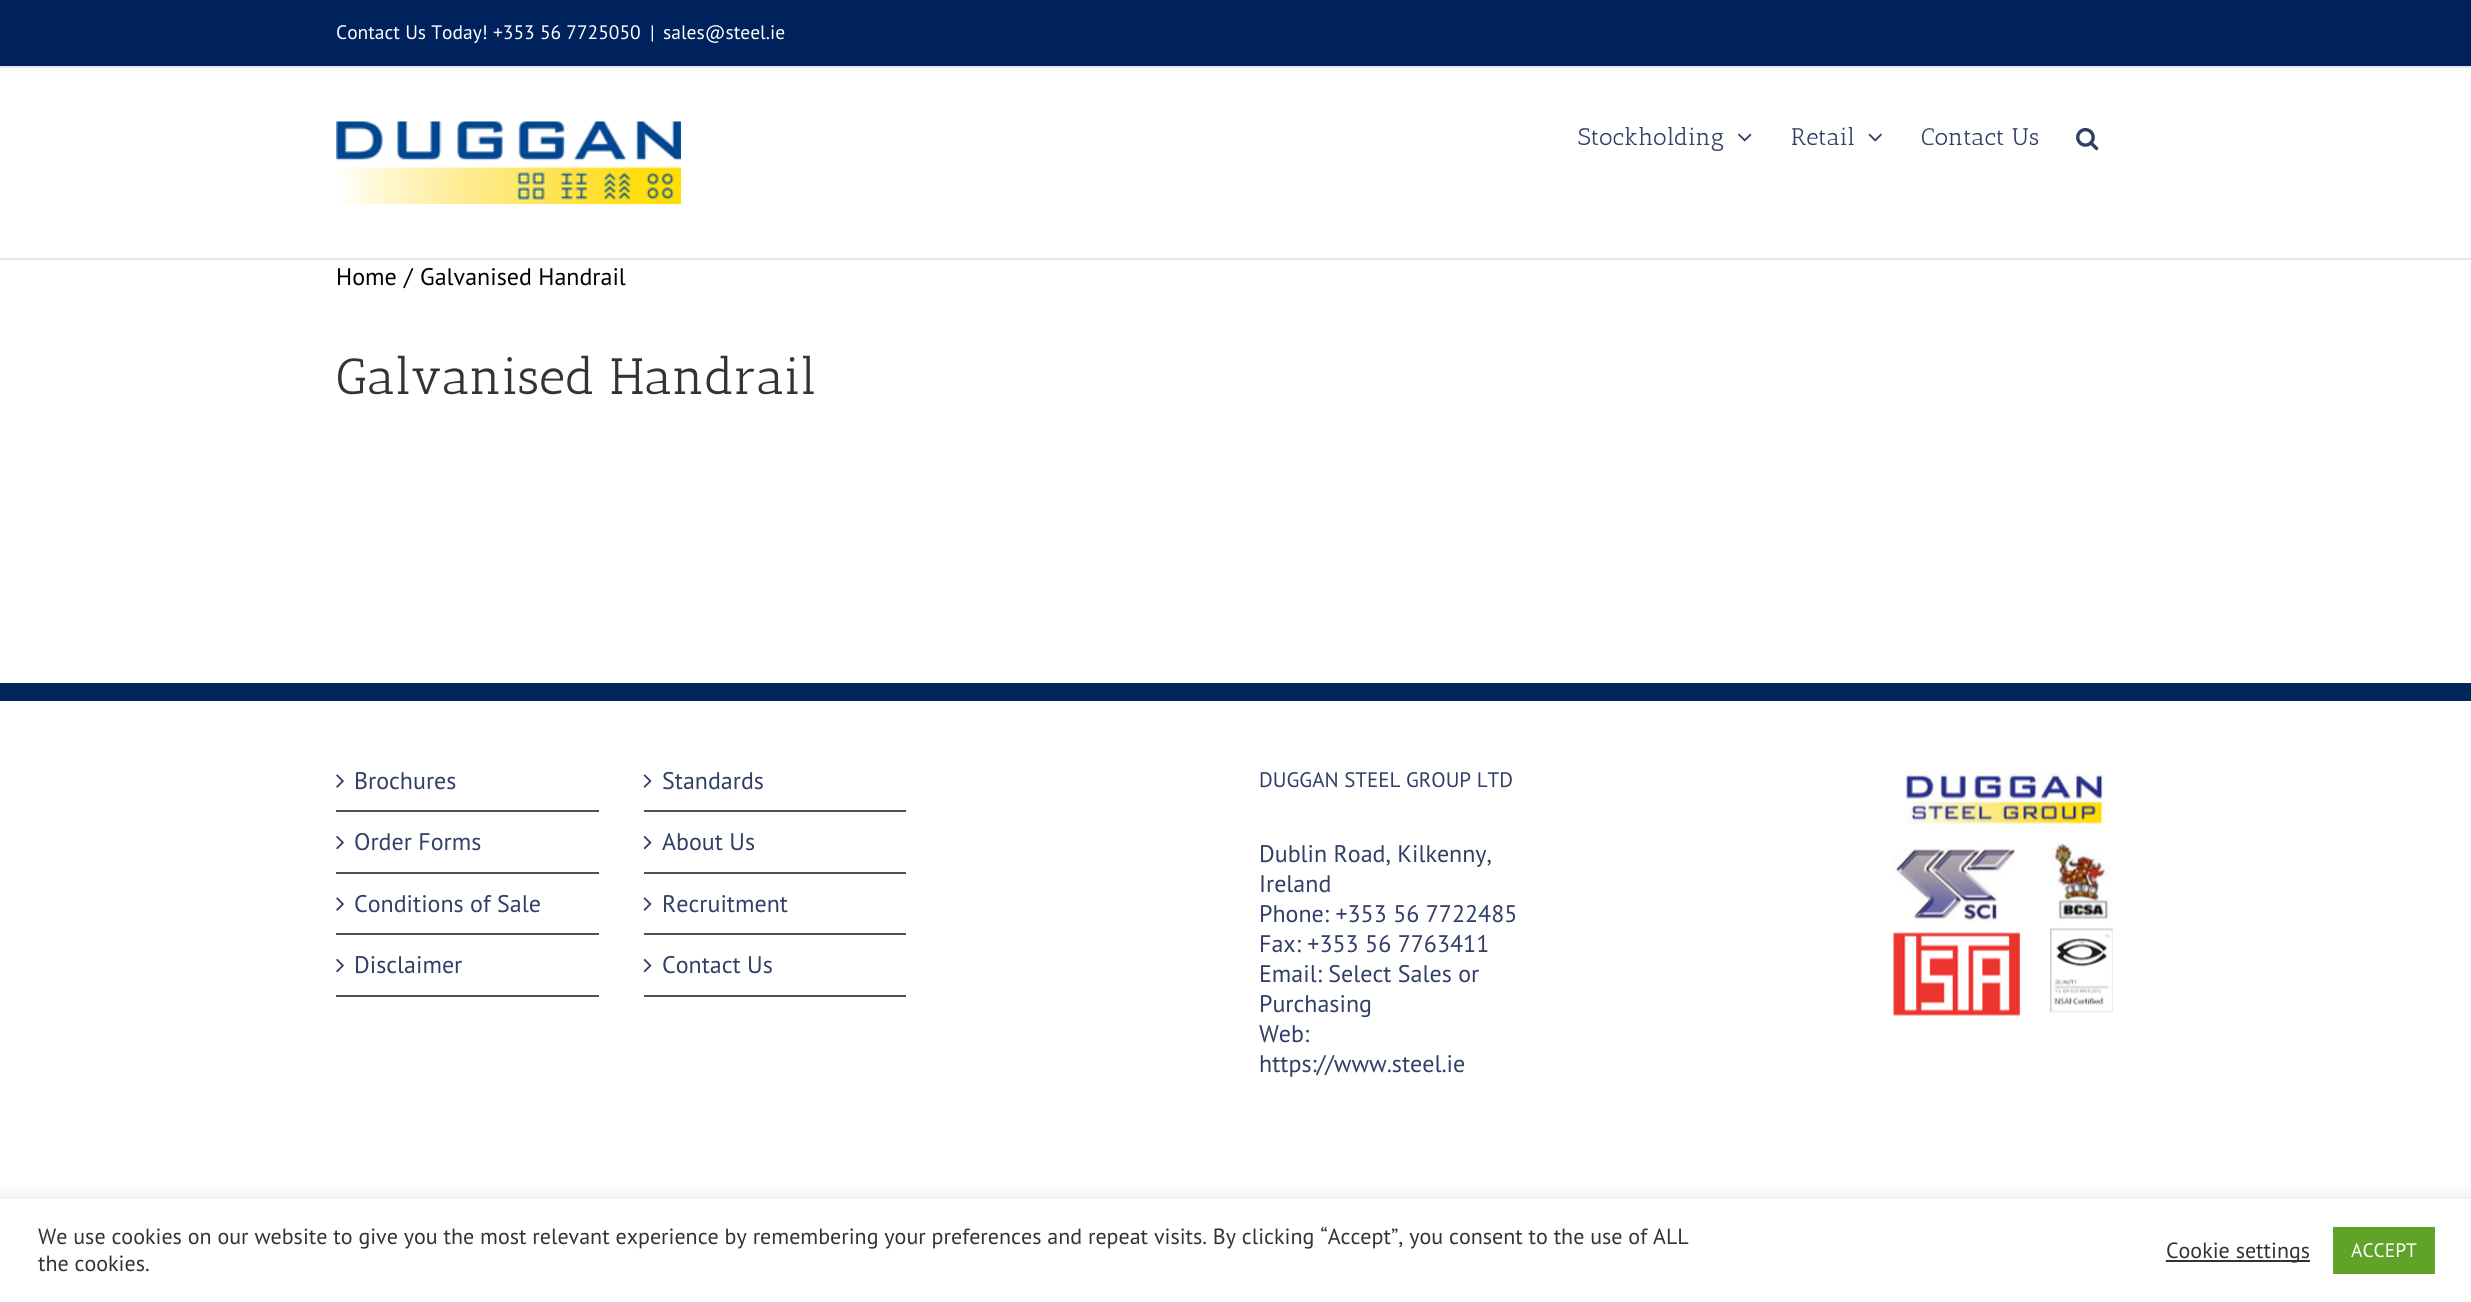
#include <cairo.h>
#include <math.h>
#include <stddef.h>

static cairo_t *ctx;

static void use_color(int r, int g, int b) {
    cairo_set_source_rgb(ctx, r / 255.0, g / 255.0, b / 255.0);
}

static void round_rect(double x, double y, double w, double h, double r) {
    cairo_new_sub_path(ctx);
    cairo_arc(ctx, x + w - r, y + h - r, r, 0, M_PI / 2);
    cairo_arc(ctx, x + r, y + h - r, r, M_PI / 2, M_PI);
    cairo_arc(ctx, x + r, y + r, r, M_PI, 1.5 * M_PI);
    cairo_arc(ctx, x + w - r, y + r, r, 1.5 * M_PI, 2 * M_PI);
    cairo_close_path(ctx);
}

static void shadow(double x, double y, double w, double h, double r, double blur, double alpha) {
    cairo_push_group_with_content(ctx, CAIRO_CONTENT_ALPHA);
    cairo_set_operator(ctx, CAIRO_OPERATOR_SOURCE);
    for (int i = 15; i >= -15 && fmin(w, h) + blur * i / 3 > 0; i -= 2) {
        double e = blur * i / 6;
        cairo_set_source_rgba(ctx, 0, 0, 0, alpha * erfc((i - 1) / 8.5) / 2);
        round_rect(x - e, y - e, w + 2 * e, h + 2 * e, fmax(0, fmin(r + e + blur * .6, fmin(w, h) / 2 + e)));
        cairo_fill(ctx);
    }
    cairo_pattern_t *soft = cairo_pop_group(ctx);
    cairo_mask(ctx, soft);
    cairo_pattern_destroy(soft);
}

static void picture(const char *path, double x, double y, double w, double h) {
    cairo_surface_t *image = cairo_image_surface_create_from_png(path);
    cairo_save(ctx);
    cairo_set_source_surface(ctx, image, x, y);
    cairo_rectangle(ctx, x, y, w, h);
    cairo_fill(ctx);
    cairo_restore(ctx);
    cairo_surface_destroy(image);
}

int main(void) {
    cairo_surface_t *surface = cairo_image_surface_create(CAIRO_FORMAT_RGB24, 2471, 1302);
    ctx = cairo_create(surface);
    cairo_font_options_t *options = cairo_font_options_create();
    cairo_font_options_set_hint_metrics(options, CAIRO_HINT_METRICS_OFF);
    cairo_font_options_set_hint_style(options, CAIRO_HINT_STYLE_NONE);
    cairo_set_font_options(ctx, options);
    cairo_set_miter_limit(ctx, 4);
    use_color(255, 255, 255);
    cairo_paint(ctx);
    use_color(0, 34, 92);
    cairo_rectangle(ctx, 0, 0, 2471, 66);
    cairo_fill(ctx);
    use_color(229, 229, 229);
    cairo_rectangle(ctx, 0, 66, 2471, 2);
    cairo_fill(ctx);
    cairo_select_font_face(ctx, "PT Sans", CAIRO_FONT_SLANT_NORMAL, CAIRO_FONT_WEIGHT_NORMAL);
    cairo_set_font_size(ctx, 19.5);
    use_color(255, 255, 255);
    cairo_move_to(ctx, 336, 39);
    cairo_show_text(ctx, "Contact Us Today! +353 56 7725050");
    cairo_move_to(ctx, 650, 39);
    cairo_show_text(ctx, "|");
    cairo_move_to(ctx, 663, 39);
    cairo_show_text(ctx, "sales@steel.ie");
    use_color(229, 229, 229);
    cairo_rectangle(ctx, 0, 258, 2471, 2);
    cairo_fill(ctx);
    picture("img1.png", 336, 121, 345, 83);
    cairo_select_font_face(ctx, "Antic Slab", CAIRO_FONT_SLANT_NORMAL, CAIRO_FONT_WEIGHT_NORMAL);
    cairo_set_font_size(ctx, 24);
    use_color(49, 62, 102);
    cairo_move_to(ctx, 1578, 145);
    cairo_show_text(ctx, "Stockholding");
    picture("img2.png", 1738, 133, 14, 9);
    cairo_move_to(ctx, 1791, 145);
    cairo_show_text(ctx, "Retail");
    picture("img3.png", 1868, 133, 14, 9);
    cairo_move_to(ctx, 1921, 145);
    cairo_show_text(ctx, "Contact Us");
    picture("img4.png", 2076, 127, 23, 24);
    cairo_select_font_face(ctx, "PT Sans", CAIRO_FONT_SLANT_NORMAL, CAIRO_FONT_WEIGHT_NORMAL);
    use_color(0, 0, 0);
    cairo_move_to(ctx, 336, 285);
    cairo_show_text(ctx, "Home");
    cairo_move_to(ctx, 404, 285);
    cairo_show_text(ctx, "/");
    cairo_move_to(ctx, 420, 285);
    cairo_show_text(ctx, "Galvanised Handrail");
    cairo_select_font_face(ctx, "Antic Slab", CAIRO_FONT_SLANT_NORMAL, CAIRO_FONT_WEIGHT_NORMAL);
    cairo_set_font_size(ctx, 51);
    use_color(51, 51, 51);
    cairo_move_to(ctx, 336, 394);
    cairo_show_text(ctx, "Galvanised Handrail");
    use_color(0, 39, 92);
    cairo_rectangle(ctx, 0, 683, 2471, 18);
    cairo_fill(ctx);
    use_color(80, 81, 82);
    cairo_rectangle(ctx, 336, 810, 263, 2);
    cairo_fill(ctx);
    picture("img5.png", 336, 774, 8, 14);
    cairo_select_font_face(ctx, "PT Sans", CAIRO_FONT_SLANT_NORMAL, CAIRO_FONT_WEIGHT_NORMAL);
    cairo_set_font_size(ctx, 24);
    use_color(49, 62, 102);
    cairo_move_to(ctx, 354, 789);
    cairo_show_text(ctx, "Brochures");
    use_color(80, 81, 82);
    cairo_rectangle(ctx, 336, 872, 263, 2);
    cairo_fill(ctx);
    picture("img6.png", 336, 835, 8, 15);
    use_color(49, 62, 102);
    cairo_move_to(ctx, 354, 850);
    cairo_show_text(ctx, "Order Forms");
    use_color(80, 81, 82);
    cairo_rectangle(ctx, 336, 933, 263, 2);
    cairo_fill(ctx);
    picture("img5.png", 336, 897, 8, 14);
    use_color(49, 62, 102);
    cairo_move_to(ctx, 354, 912);
    cairo_show_text(ctx, "Conditions of Sale");
    use_color(80, 81, 82);
    cairo_rectangle(ctx, 336, 995, 263, 2);
    cairo_fill(ctx);
    picture("img6.png", 336, 958, 8, 15);
    use_color(49, 62, 102);
    cairo_move_to(ctx, 354, 973);
    cairo_show_text(ctx, "Disclaimer");
    use_color(80, 81, 82);
    cairo_rectangle(ctx, 644, 810, 262, 2);
    cairo_fill(ctx);
    picture("img7.png", 643, 774, 9, 14);
    use_color(49, 62, 102);
    cairo_move_to(ctx, 662, 789);
    cairo_show_text(ctx, "Standards");
    use_color(80, 81, 82);
    cairo_rectangle(ctx, 644, 872, 262, 2);
    cairo_fill(ctx);
    picture("img8.png", 643, 835, 9, 15);
    use_color(49, 62, 102);
    cairo_move_to(ctx, 662, 850);
    cairo_show_text(ctx, "About Us");
    use_color(80, 81, 82);
    cairo_rectangle(ctx, 644, 933, 262, 2);
    cairo_fill(ctx);
    picture("img7.png", 643, 897, 9, 14);
    use_color(49, 62, 102);
    cairo_move_to(ctx, 662, 912);
    cairo_show_text(ctx, "Recruitment");
    use_color(80, 81, 82);
    cairo_rectangle(ctx, 644, 995, 262, 2);
    cairo_fill(ctx);
    picture("img8.png", 643, 958, 9, 15);
    use_color(49, 62, 102);
    cairo_move_to(ctx, 662, 973);
    cairo_show_text(ctx, "Contact Us");
    cairo_set_font_size(ctx, 21);
    cairo_move_to(ctx, 1259, 787);
    cairo_show_text(ctx, "DUGGAN STEEL GROUP LTD");
    cairo_set_font_size(ctx, 24);
    cairo_move_to(ctx, 1259, 862);
    cairo_show_text(ctx, "Dublin Road, Kilkenny,");
    cairo_move_to(ctx, 1259, 892);
    cairo_show_text(ctx, "Ireland");
    cairo_move_to(ctx, 1259, 922);
    cairo_show_text(ctx, "Phone: +353 56 7722485");
    cairo_move_to(ctx, 1259, 952);
    cairo_show_text(ctx, "Fax: +353 56 7763411");
    cairo_move_to(ctx, 1259, 982);
    cairo_show_text(ctx, "Email: Select Sales or");
    cairo_move_to(ctx, 1259, 1012);
    cairo_show_text(ctx, "Purchasing");
    cairo_move_to(ctx, 1259, 1042);
    cairo_show_text(ctx, "Web:");
    cairo_move_to(ctx, 1259, 1072);
    cairo_show_text(ctx, "https://www.steel.ie");
    picture("img9.png", 1893, 772, 220, 244);
    cairo_save(ctx);
    cairo_rectangle(ctx, 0, 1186, 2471, 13);
    cairo_clip(ctx);
    use_color(172, 171, 171);
    shadow(0, 1197, 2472, 104, 0, 7.5, 0.3);
    cairo_restore(ctx);
    cairo_set_font_size(ctx, 22);
    use_color(51, 51, 51);
    cairo_move_to(ctx, 38, 1244);
    cairo_show_text(ctx, "We use cookies on our website to give you the most relevant experience by remembering your preferences and repeat visits. By clicking “Accept”, you consent to the use of ALL");
    cairo_move_to(ctx, 38, 1271);
    cairo_show_text(ctx, "the cookies.");
    cairo_rectangle(ctx, 2166, 1260, 144, 2);
    cairo_fill(ctx);
    cairo_move_to(ctx, 2166, 1258);
    cairo_show_text(ctx, "Cookie settings");
    use_color(97, 162, 41);
    cairo_rectangle(ctx, 2333, 1227, 102, 47);
    cairo_fill(ctx);
    cairo_set_font_size(ctx, 19.5);
    use_color(255, 255, 255);
    cairo_move_to(ctx, 2351, 1257);
    cairo_show_text(ctx, "ACCEPT");
    cairo_surface_write_to_png(surface, "result.png");
    cairo_font_options_destroy(options);
    cairo_destroy(ctx);
    cairo_surface_destroy(surface);
    return 0;
}
